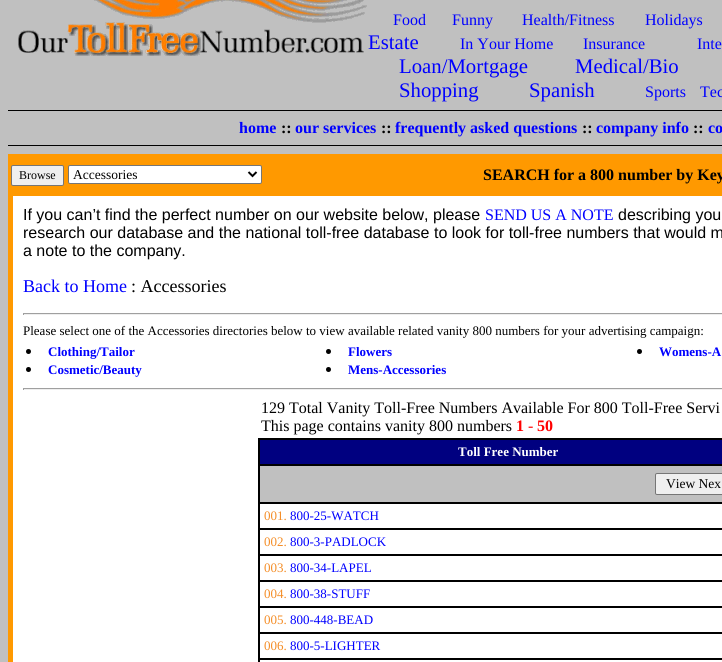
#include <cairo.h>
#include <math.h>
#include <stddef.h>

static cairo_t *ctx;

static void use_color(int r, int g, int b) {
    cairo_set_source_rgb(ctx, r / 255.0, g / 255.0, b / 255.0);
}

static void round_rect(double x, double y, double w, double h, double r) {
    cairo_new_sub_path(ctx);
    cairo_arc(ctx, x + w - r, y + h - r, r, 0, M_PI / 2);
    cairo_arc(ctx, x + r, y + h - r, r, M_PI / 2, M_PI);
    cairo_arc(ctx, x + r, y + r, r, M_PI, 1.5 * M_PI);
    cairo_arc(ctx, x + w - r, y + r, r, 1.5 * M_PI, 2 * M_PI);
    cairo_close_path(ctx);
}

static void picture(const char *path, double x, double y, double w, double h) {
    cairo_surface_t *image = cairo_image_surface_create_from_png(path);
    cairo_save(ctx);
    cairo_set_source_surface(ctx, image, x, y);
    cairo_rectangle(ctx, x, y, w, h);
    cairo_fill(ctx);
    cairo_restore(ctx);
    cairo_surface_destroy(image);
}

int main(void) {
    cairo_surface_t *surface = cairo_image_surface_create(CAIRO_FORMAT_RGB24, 722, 662);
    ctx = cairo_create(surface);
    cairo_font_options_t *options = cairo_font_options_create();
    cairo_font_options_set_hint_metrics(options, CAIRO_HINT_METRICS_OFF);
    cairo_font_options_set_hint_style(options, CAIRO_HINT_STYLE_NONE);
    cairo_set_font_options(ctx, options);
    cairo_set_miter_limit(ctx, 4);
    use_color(192, 192, 192);
    cairo_paint(ctx);
    picture("img1.png", 18, 0, 349, 56);
    cairo_select_font_face(ctx, "Liberation Serif", CAIRO_FONT_SLANT_NORMAL, CAIRO_FONT_WEIGHT_NORMAL);
    cairo_set_font_size(ctx, 16);
    use_color(0, 0, 255);
    cairo_move_to(ctx, 393, 25);
    cairo_show_text(ctx, "Food");
    cairo_move_to(ctx, 452, 25);
    cairo_show_text(ctx, "Funny");
    cairo_move_to(ctx, 522, 25);
    cairo_show_text(ctx, "Health/Fitness");
    cairo_move_to(ctx, 645, 25);
    cairo_show_text(ctx, "Holidays");
    cairo_set_font_size(ctx, 20.75);
    cairo_move_to(ctx, 368, 49);
    cairo_show_text(ctx, "Estate");
    cairo_set_font_size(ctx, 16);
    cairo_move_to(ctx, 460, 49);
    cairo_show_text(ctx, "In Your Home");
    cairo_move_to(ctx, 583, 49);
    cairo_show_text(ctx, "Insurance");
    cairo_move_to(ctx, 697, 49);
    cairo_show_text(ctx, "Inte");
    cairo_set_font_size(ctx, 20.75);
    cairo_move_to(ctx, 399, 73);
    cairo_show_text(ctx, "Loan/Mortgage");
    cairo_move_to(ctx, 575, 73);
    cairo_show_text(ctx, "Medical/Bio");
    cairo_move_to(ctx, 399, 97);
    cairo_show_text(ctx, "Shopping");
    cairo_move_to(ctx, 529, 97);
    cairo_show_text(ctx, "Spanish");
    cairo_set_font_size(ctx, 16);
    cairo_move_to(ctx, 645, 97);
    cairo_show_text(ctx, "Sports");
    cairo_move_to(ctx, 700, 97);
    cairo_show_text(ctx, "Tec");
    use_color(0, 0, 0);
    cairo_rectangle(ctx, 8, 110, 714, 1);
    cairo_fill(ctx);
    cairo_select_font_face(ctx, "Liberation Serif", CAIRO_FONT_SLANT_NORMAL, CAIRO_FONT_WEIGHT_BOLD);
    use_color(0, 0, 255);
    cairo_move_to(ctx, 239, 133);
    cairo_show_text(ctx, "home");
    use_color(0, 0, 0);
    cairo_move_to(ctx, 281, 133);
    cairo_show_text(ctx, "::");
    use_color(0, 0, 255);
    cairo_move_to(ctx, 295, 133);
    cairo_show_text(ctx, "our services");
    use_color(0, 0, 0);
    cairo_move_to(ctx, 381, 133);
    cairo_show_text(ctx, "::");
    use_color(0, 0, 255);
    cairo_move_to(ctx, 395, 133);
    cairo_show_text(ctx, "frequently asked questions");
    use_color(0, 0, 0);
    cairo_move_to(ctx, 582, 133);
    cairo_show_text(ctx, "::");
    use_color(0, 0, 255);
    cairo_move_to(ctx, 596, 133);
    cairo_show_text(ctx, "company info");
    use_color(0, 0, 0);
    cairo_move_to(ctx, 693, 133);
    cairo_show_text(ctx, "::");
    use_color(0, 0, 255);
    cairo_move_to(ctx, 708, 133);
    cairo_show_text(ctx, "co");
    use_color(0, 0, 0);
    cairo_rectangle(ctx, 8, 145, 714, 1);
    cairo_fill(ctx);
    use_color(255, 153, 0);
    cairo_rectangle(ctx, 8, 154, 714, 37);
    cairo_fill(ctx);
    use_color(239, 239, 239);
    round_rect(11.5, 165.5, 52, 20, 1.5);
    cairo_fill_preserve(ctx);
    use_color(118, 118, 118);
    cairo_set_line_width(ctx, 1);
    cairo_stroke(ctx);
    cairo_select_font_face(ctx, "Liberation Serif", CAIRO_FONT_SLANT_NORMAL, CAIRO_FONT_WEIGHT_NORMAL);
    cairo_set_font_size(ctx, 12);
    use_color(0, 0, 0);
    cairo_move_to(ctx, 19, 179);
    cairo_show_text(ctx, "Browse");
    use_color(255, 255, 255);
    round_rect(68.5, 165.5, 193, 18, 1.5);
    cairo_fill_preserve(ctx);
    use_color(118, 118, 118);
    cairo_stroke(ctx);
    cairo_new_path(ctx);
    cairo_move_to(ctx, 248.5, 172);
    cairo_line_to(ctx, 252.5, 176);
    cairo_line_to(ctx, 256.5, 172);
    use_color(0, 0, 0);
    cairo_set_line_width(ctx, 2);
    cairo_stroke(ctx);
    cairo_set_font_size(ctx, 13.5);
    cairo_move_to(ctx, 73, 179);
    cairo_show_text(ctx, "Accessories");
    cairo_select_font_face(ctx, "Liberation Serif", CAIRO_FONT_SLANT_NORMAL, CAIRO_FONT_WEIGHT_BOLD);
    cairo_set_font_size(ctx, 16);
    cairo_move_to(ctx, 483, 180);
    cairo_show_text(ctx, "SEARCH for a 800 number by Key");
    cairo_rectangle(ctx, 10, 193, 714, 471);
    use_color(255, 153, 0);
    cairo_set_line_width(ctx, 4);
    cairo_stroke(ctx);
    use_color(255, 255, 255);
    cairo_rectangle(ctx, 12.5, 195.5, 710, 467);
    cairo_fill_preserve(ctx);
    use_color(255, 153, 0);
    cairo_set_line_width(ctx, 1);
    cairo_stroke(ctx);
    cairo_select_font_face(ctx, "Liberation Sans", CAIRO_FONT_SLANT_NORMAL, CAIRO_FONT_WEIGHT_NORMAL);
    use_color(0, 0, 0);
    cairo_move_to(ctx, 23, 220);
    cairo_show_text(ctx, "If you can’t find the perfect number on our website below, please");
    cairo_select_font_face(ctx, "Liberation Serif", CAIRO_FONT_SLANT_NORMAL, CAIRO_FONT_WEIGHT_NORMAL);
    use_color(0, 0, 255);
    cairo_move_to(ctx, 485, 220);
    cairo_show_text(ctx, "SEND US A NOTE");
    cairo_select_font_face(ctx, "Liberation Sans", CAIRO_FONT_SLANT_NORMAL, CAIRO_FONT_WEIGHT_NORMAL);
    use_color(0, 0, 0);
    cairo_move_to(ctx, 618, 220);
    cairo_show_text(ctx, "describing you");
    cairo_move_to(ctx, 23, 238);
    cairo_show_text(ctx, "research our database and the national toll-free database to look for toll-free numbers that would m");
    cairo_move_to(ctx, 23, 256);
    cairo_show_text(ctx, "a note to the company.");
    cairo_select_font_face(ctx, "Liberation Serif", CAIRO_FONT_SLANT_NORMAL, CAIRO_FONT_WEIGHT_NORMAL);
    cairo_set_font_size(ctx, 18);
    use_color(0, 0, 255);
    cairo_move_to(ctx, 23, 292);
    cairo_show_text(ctx, "Back to Home");
    use_color(0, 0, 0);
    cairo_move_to(ctx, 131, 292);
    cairo_show_text(ctx, ": Accessories");
    use_color(159, 159, 159);
    cairo_rectangle(ctx, 23, 313, 699, 1);
    cairo_fill(ctx);
    use_color(238, 238, 238);
    cairo_rectangle(ctx, 23, 314, 699, 1);
    cairo_fill(ctx);
    use_color(159, 159, 159);
    cairo_rectangle(ctx, 23, 313, 1, 2);
    cairo_fill(ctx);
    cairo_set_font_size(ctx, 13);
    use_color(0, 0, 0);
    cairo_move_to(ctx, 23, 335);
    cairo_show_text(ctx, "Please select one of the Accessories directories below to view available related vanity 800 numbers for your advertising campaign:");
    cairo_new_path(ctx);
    cairo_arc(ctx, 28.5, 351.5, 2.5, 0, 2 * M_PI);
    cairo_fill(ctx);
    cairo_select_font_face(ctx, "Liberation Serif", CAIRO_FONT_SLANT_NORMAL, CAIRO_FONT_WEIGHT_BOLD);
    use_color(0, 0, 255);
    cairo_move_to(ctx, 48, 356);
    cairo_show_text(ctx, "Clothing/Tailor");
    use_color(0, 0, 0);
    cairo_new_path(ctx);
    cairo_arc(ctx, 28.5, 369.5, 2.5, 0, 2 * M_PI);
    cairo_fill(ctx);
    use_color(0, 0, 255);
    cairo_move_to(ctx, 48, 374);
    cairo_show_text(ctx, "Cosmetic/Beauty");
    use_color(0, 0, 0);
    cairo_new_path(ctx);
    cairo_arc(ctx, 328.5, 351.5, 2.5, 0, 2 * M_PI);
    cairo_fill(ctx);
    use_color(0, 0, 255);
    cairo_move_to(ctx, 348, 356);
    cairo_show_text(ctx, "Flowers");
    use_color(0, 0, 0);
    cairo_new_path(ctx);
    cairo_arc(ctx, 328.5, 369.5, 2.5, 0, 2 * M_PI);
    cairo_fill(ctx);
    use_color(0, 0, 255);
    cairo_move_to(ctx, 348, 374);
    cairo_show_text(ctx, "Mens-Accessories");
    use_color(0, 0, 0);
    cairo_new_path(ctx);
    cairo_arc(ctx, 639.5, 351.5, 2.5, 0, 2 * M_PI);
    cairo_fill(ctx);
    use_color(0, 0, 255);
    cairo_move_to(ctx, 659, 356);
    cairo_show_text(ctx, "Womens-A");
    use_color(159, 159, 159);
    cairo_rectangle(ctx, 23, 388, 699, 1);
    cairo_fill(ctx);
    use_color(238, 238, 238);
    cairo_rectangle(ctx, 23, 389, 699, 1);
    cairo_fill(ctx);
    use_color(159, 159, 159);
    cairo_rectangle(ctx, 23, 388, 1, 2);
    cairo_fill(ctx);
    cairo_select_font_face(ctx, "Liberation Serif", CAIRO_FONT_SLANT_NORMAL, CAIRO_FONT_WEIGHT_NORMAL);
    cairo_set_font_size(ctx, 16);
    use_color(0, 0, 0);
    cairo_move_to(ctx, 261, 413);
    cairo_show_text(ctx, "129 Total Vanity Toll-Free Numbers Available For 800 Toll-Free Servi");
    cairo_move_to(ctx, 261, 431);
    cairo_show_text(ctx, "This page contains vanity 800 numbers");
    cairo_select_font_face(ctx, "Liberation Serif", CAIRO_FONT_SLANT_NORMAL, CAIRO_FONT_WEIGHT_BOLD);
    use_color(255, 0, 0);
    cairo_move_to(ctx, 516, 431);
    cairo_show_text(ctx, "1");
    cairo_select_font_face(ctx, "Liberation Serif", CAIRO_FONT_SLANT_NORMAL, CAIRO_FONT_WEIGHT_NORMAL);
    cairo_move_to(ctx, 528, 431);
    cairo_show_text(ctx, "-");
    cairo_select_font_face(ctx, "Liberation Serif", CAIRO_FONT_SLANT_NORMAL, CAIRO_FONT_WEIGHT_BOLD);
    cairo_move_to(ctx, 537, 431);
    cairo_show_text(ctx, "50");
    cairo_rectangle(ctx, 258.5, 438.5, 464, 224);
    use_color(0, 0, 0);
    cairo_stroke(ctx);
    use_color(0, 0, 128);
    cairo_rectangle(ctx, 259.5, 439.5, 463, 25);
    cairo_fill_preserve(ctx);
    use_color(0, 0, 0);
    cairo_stroke(ctx);
    cairo_set_font_size(ctx, 13);
    use_color(255, 255, 255);
    cairo_move_to(ctx, 458, 456);
    cairo_show_text(ctx, "Toll Free Number");
    use_color(192, 192, 192);
    cairo_rectangle(ctx, 259.5, 465.5, 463, 37);
    cairo_fill_preserve(ctx);
    use_color(0, 0, 0);
    cairo_stroke(ctx);
    use_color(239, 239, 239);
    round_rect(655.5, 473.5, 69, 21, 1.5);
    cairo_fill_preserve(ctx);
    use_color(118, 118, 118);
    cairo_stroke(ctx);
    cairo_select_font_face(ctx, "Liberation Serif", CAIRO_FONT_SLANT_NORMAL, CAIRO_FONT_WEIGHT_NORMAL);
    cairo_set_font_size(ctx, 13.5);
    use_color(0, 0, 0);
    cairo_move_to(ctx, 666, 488);
    cairo_show_text(ctx, "View Nex");
    cairo_rectangle(ctx, 259.5, 503.5, 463, 25);
    cairo_stroke(ctx);
    cairo_set_font_size(ctx, 13);
    use_color(244, 141, 38);
    cairo_move_to(ctx, 264, 520);
    cairo_show_text(ctx, "001.");
    use_color(0, 0, 255);
    cairo_move_to(ctx, 290, 520);
    cairo_show_text(ctx, "800-25-WATCH");
    cairo_rectangle(ctx, 259.5, 529.5, 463, 25);
    use_color(0, 0, 0);
    cairo_stroke(ctx);
    use_color(244, 141, 38);
    cairo_move_to(ctx, 264, 546);
    cairo_show_text(ctx, "002.");
    use_color(0, 0, 255);
    cairo_move_to(ctx, 290, 546);
    cairo_show_text(ctx, "800-3-PADLOCK");
    cairo_rectangle(ctx, 259.5, 555.5, 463, 25);
    use_color(0, 0, 0);
    cairo_stroke(ctx);
    use_color(244, 141, 38);
    cairo_move_to(ctx, 264, 572);
    cairo_show_text(ctx, "003.");
    use_color(0, 0, 255);
    cairo_move_to(ctx, 290, 572);
    cairo_show_text(ctx, "800-34-LAPEL");
    cairo_rectangle(ctx, 259.5, 581.5, 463, 25);
    use_color(0, 0, 0);
    cairo_stroke(ctx);
    use_color(244, 141, 38);
    cairo_move_to(ctx, 264, 598);
    cairo_show_text(ctx, "004.");
    use_color(0, 0, 255);
    cairo_move_to(ctx, 290, 598);
    cairo_show_text(ctx, "800-38-STUFF");
    cairo_rectangle(ctx, 259.5, 607.5, 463, 25);
    use_color(0, 0, 0);
    cairo_stroke(ctx);
    use_color(244, 141, 38);
    cairo_move_to(ctx, 264, 624);
    cairo_show_text(ctx, "005.");
    use_color(0, 0, 255);
    cairo_move_to(ctx, 290, 624);
    cairo_show_text(ctx, "800-448-BEAD");
    cairo_rectangle(ctx, 259.5, 633.5, 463, 25);
    use_color(0, 0, 0);
    cairo_stroke(ctx);
    use_color(244, 141, 38);
    cairo_move_to(ctx, 264, 650);
    cairo_show_text(ctx, "006.");
    use_color(0, 0, 255);
    cairo_move_to(ctx, 290, 650);
    cairo_show_text(ctx, "800-5-LIGHTER");
    cairo_rectangle(ctx, 259.5, 659.5, 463, 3);
    use_color(0, 0, 0);
    cairo_stroke(ctx);
    cairo_surface_write_to_png(surface, "result.png");
    cairo_font_options_destroy(options);
    cairo_destroy(ctx);
    cairo_surface_destroy(surface);
    return 0;
}
